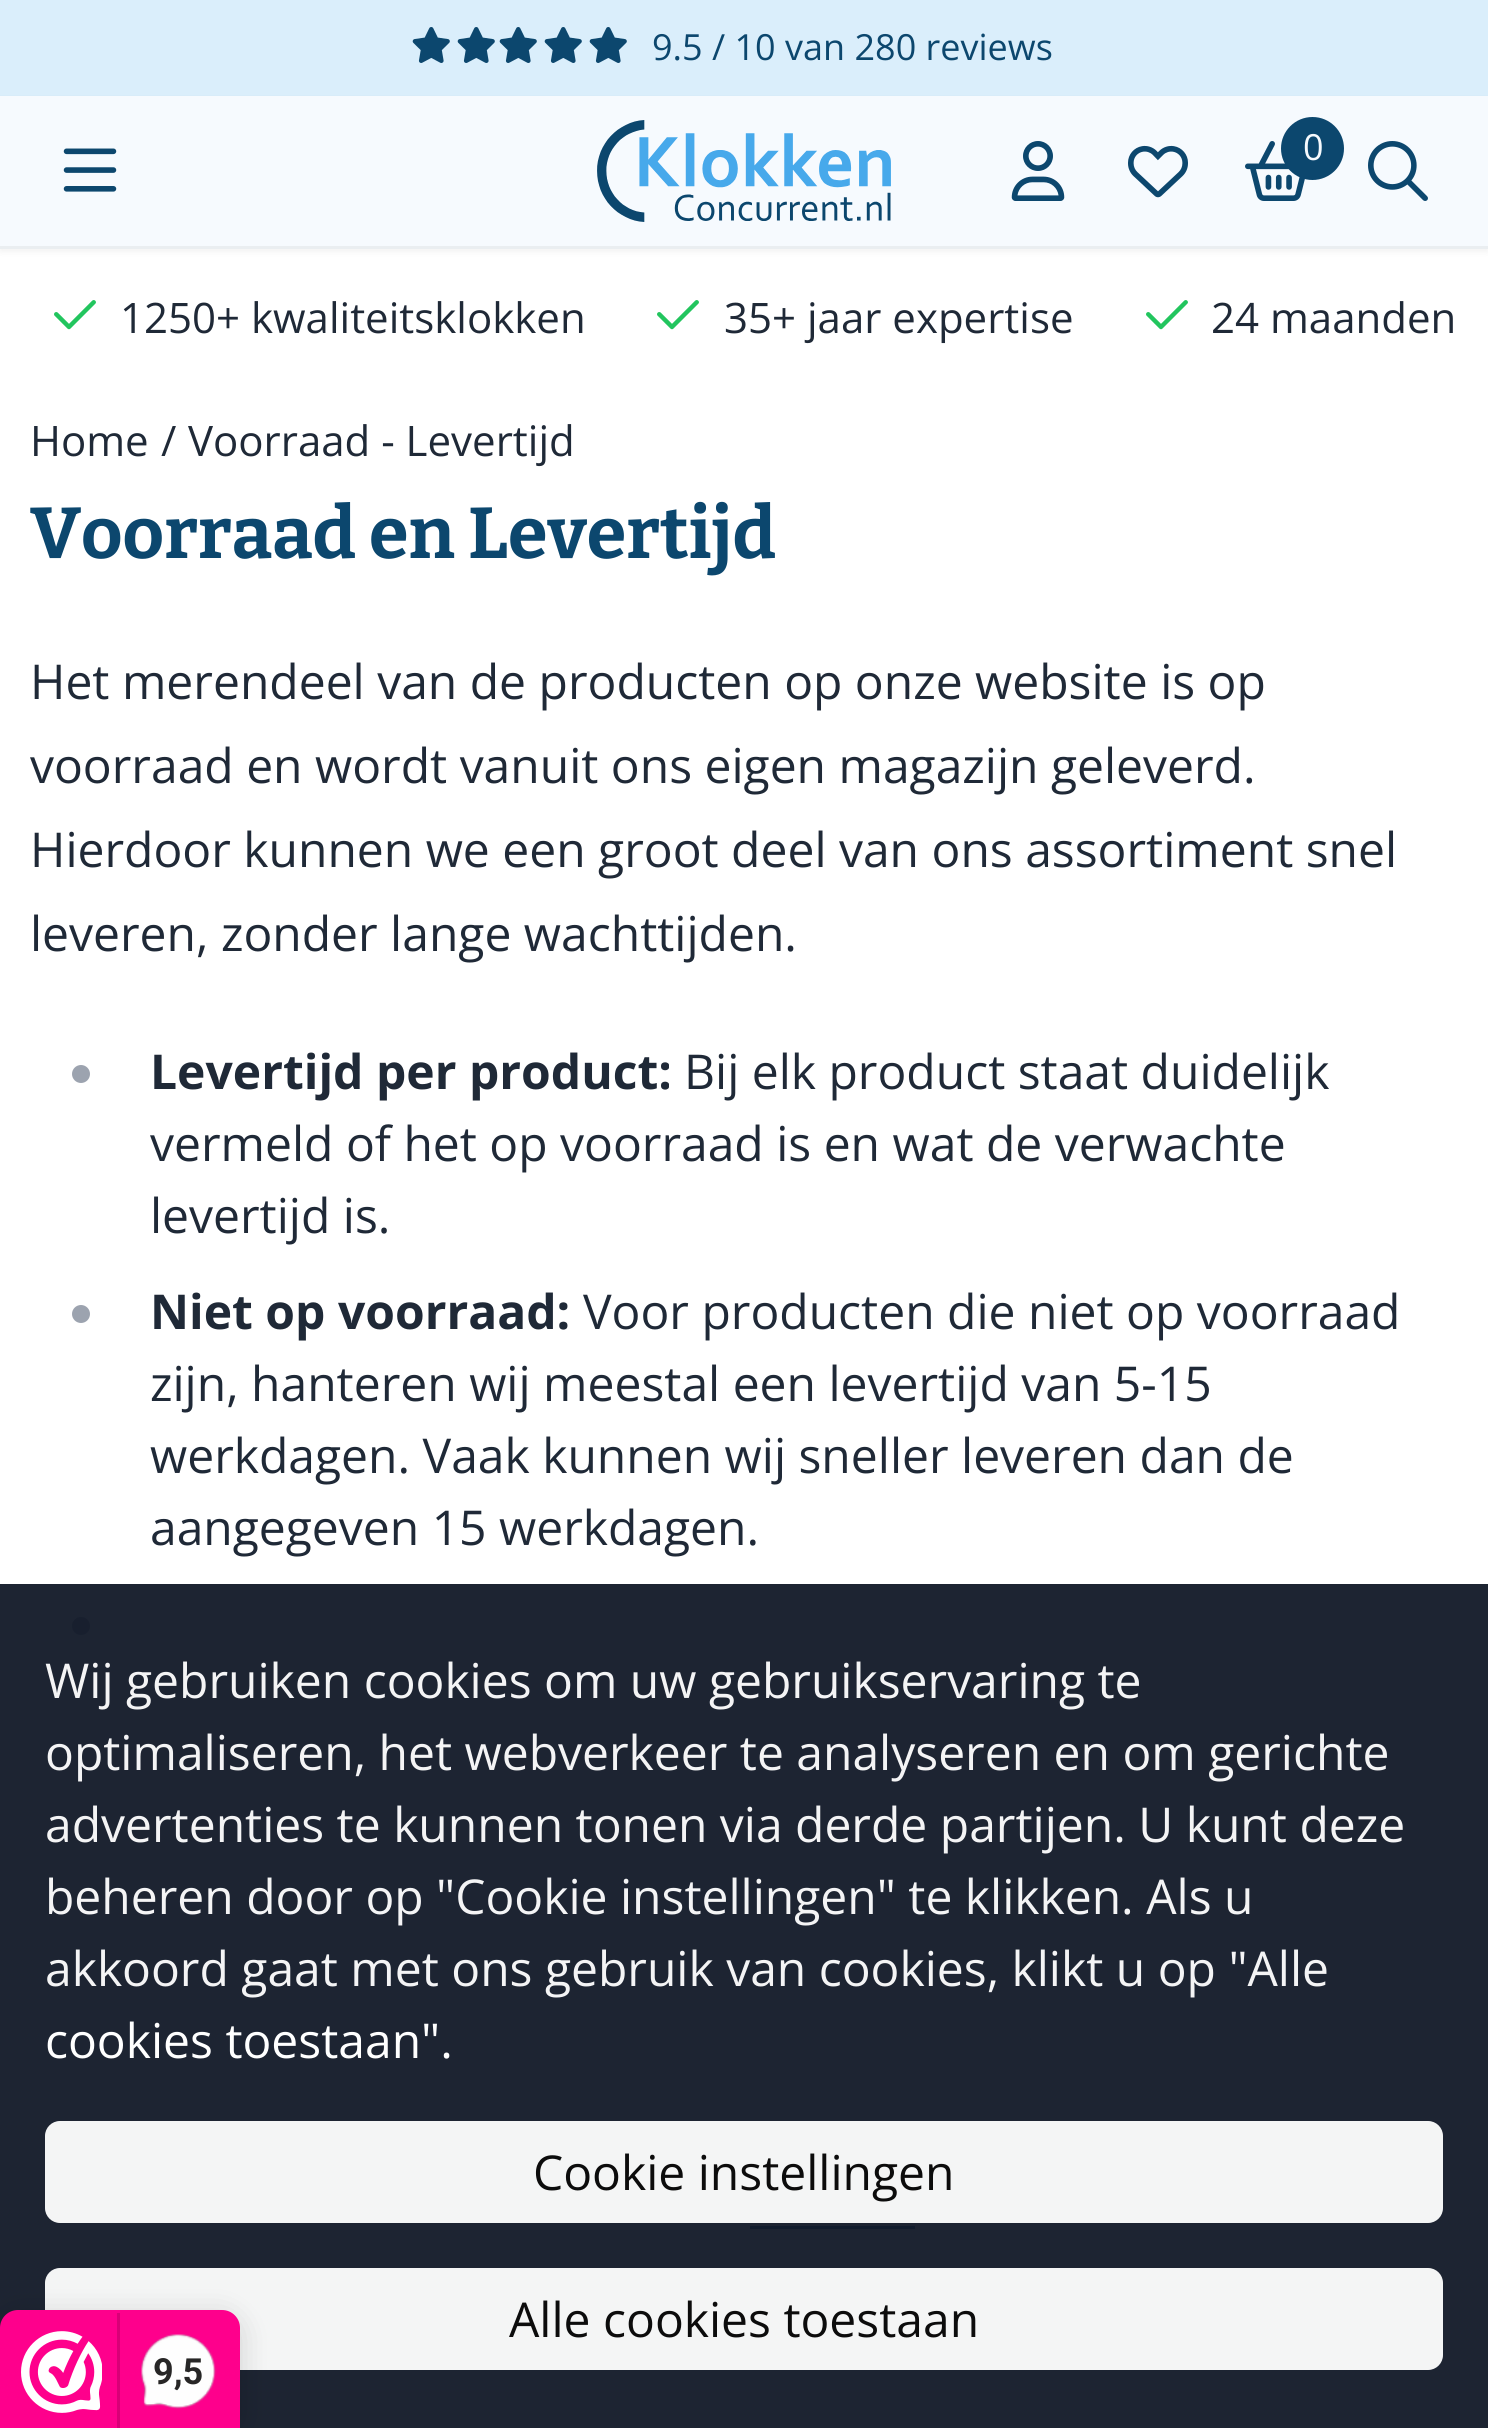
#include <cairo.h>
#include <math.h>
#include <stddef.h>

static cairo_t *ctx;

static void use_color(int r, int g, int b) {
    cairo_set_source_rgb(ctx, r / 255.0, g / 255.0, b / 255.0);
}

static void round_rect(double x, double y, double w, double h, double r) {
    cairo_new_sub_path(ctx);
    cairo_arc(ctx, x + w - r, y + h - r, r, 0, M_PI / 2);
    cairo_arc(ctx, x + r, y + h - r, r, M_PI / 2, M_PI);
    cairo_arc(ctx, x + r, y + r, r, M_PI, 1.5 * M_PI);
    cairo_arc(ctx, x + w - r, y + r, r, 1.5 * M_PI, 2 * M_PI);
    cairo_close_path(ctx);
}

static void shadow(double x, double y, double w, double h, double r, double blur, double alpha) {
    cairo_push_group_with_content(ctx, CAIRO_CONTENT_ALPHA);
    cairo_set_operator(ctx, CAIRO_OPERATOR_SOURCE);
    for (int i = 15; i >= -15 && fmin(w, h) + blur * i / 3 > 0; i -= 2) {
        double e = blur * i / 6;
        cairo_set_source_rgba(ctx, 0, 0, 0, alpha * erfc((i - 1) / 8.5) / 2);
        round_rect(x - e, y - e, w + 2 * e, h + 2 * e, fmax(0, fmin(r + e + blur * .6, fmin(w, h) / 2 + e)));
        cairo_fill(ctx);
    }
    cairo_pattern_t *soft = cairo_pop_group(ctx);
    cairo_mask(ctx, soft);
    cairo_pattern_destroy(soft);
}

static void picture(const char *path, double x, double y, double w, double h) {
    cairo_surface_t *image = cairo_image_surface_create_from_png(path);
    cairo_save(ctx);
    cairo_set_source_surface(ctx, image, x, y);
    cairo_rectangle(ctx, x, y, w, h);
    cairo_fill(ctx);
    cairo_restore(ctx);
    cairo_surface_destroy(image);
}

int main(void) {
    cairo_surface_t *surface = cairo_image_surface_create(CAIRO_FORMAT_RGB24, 1488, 2428);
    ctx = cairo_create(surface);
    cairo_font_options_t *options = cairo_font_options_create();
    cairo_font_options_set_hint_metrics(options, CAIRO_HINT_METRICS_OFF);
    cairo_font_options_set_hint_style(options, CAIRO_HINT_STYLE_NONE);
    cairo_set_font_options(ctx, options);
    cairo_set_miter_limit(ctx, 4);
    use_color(255, 255, 255);
    cairo_paint(ctx);
    use_color(29, 36, 50);
    cairo_rectangle(ctx, 0, 1584, 1488, 844);
    cairo_fill(ctx);
    use_color(218, 238, 251);
    cairo_rectangle(ctx, 0, 0, 1488, 96);
    cairo_fill(ctx);
    picture("img1.png", 412, 27, 38, 36);
    picture("img1.png", 457, 27, 38, 36);
    picture("img1.png", 499, 27, 38, 36);
    picture("img1.png", 544, 27, 38, 36);
    picture("img1.png", 589, 27, 38, 36);
    cairo_select_font_face(ctx, "Open Sans", CAIRO_FONT_SLANT_NORMAL, CAIRO_FONT_WEIGHT_NORMAL);
    cairo_set_font_size(ctx, 36);
    use_color(12, 71, 110);
    cairo_move_to(ctx, 652, 60);
    cairo_show_text(ctx, "9.5 / 10 van 280 reviews");
    use_color(0, 0, 0);
    shadow(0, 99, 1488, 153, 0, 3, 0.05);
    use_color(246, 250, 254);
    cairo_rectangle(ctx, 0, 96, 1488, 150);
    cairo_fill(ctx);
    use_color(234, 238, 241);
    cairo_rectangle(ctx, 0, 246, 1488, 3);
    cairo_fill(ctx);
    picture("img2.png", 63, 148, 54, 44);
    picture("img3.png", 597, 120, 294, 102);
    picture("img4.png", 1011, 141, 54, 60);
    picture("img5.png", 1128, 145, 60, 53);
    picture("img6.png", 1245, 141, 60, 60);
    use_color(12, 71, 110);
    cairo_arc(ctx, 1312.5, 148.5, 31.5, 0, 2 * M_PI);
    cairo_fill(ctx);
    use_color(246, 250, 254);
    cairo_move_to(ctx, 1303, 160);
    cairo_show_text(ctx, "0");
    picture("img7.png", 1368, 141, 60, 60);
    picture("img8.png", 54, 300, 42, 30);
    cairo_set_font_size(ctx, 42);
    use_color(31, 41, 55);
    cairo_move_to(ctx, 120, 333);
    cairo_show_text(ctx, "1250+ kwaliteitsklokken");
    picture("img8.png", 657, 300, 42, 30);
    cairo_move_to(ctx, 724, 333);
    cairo_show_text(ctx, "35+ jaar expertise");
    picture("img8.png", 1146, 300, 42, 30);
    cairo_move_to(ctx, 1211, 333);
    cairo_show_text(ctx, "24 maanden");
    cairo_move_to(ctx, 30, 456);
    cairo_show_text(ctx, "Home");
    cairo_move_to(ctx, 161, 456);
    cairo_show_text(ctx, "/");
    cairo_move_to(ctx, 188, 456);
    cairo_show_text(ctx, "Voorraad - Levertijd");
    cairo_select_font_face(ctx, "Bitter Thin", CAIRO_FONT_SLANT_NORMAL, CAIRO_FONT_WEIGHT_NORMAL);
    cairo_set_font_size(ctx, 72);
    use_color(12, 71, 110);
    cairo_move_to(ctx, 30, 558);
    cairo_show_text(ctx, "Voorraad en Levertijd");
    cairo_select_font_face(ctx, "Open Sans", CAIRO_FONT_SLANT_NORMAL, CAIRO_FONT_WEIGHT_NORMAL);
    cairo_set_font_size(ctx, 48);
    use_color(31, 41, 55);
    cairo_move_to(ctx, 30, 699);
    cairo_show_text(ctx, "Het merendeel van de producten op onze website is op");
    cairo_move_to(ctx, 30, 783);
    cairo_show_text(ctx, "voorraad en wordt vanuit ons eigen magazijn geleverd.");
    cairo_move_to(ctx, 30, 867);
    cairo_show_text(ctx, "Hierdoor kunnen we een groot deel van ons assortiment snel");
    cairo_move_to(ctx, 30, 951);
    cairo_show_text(ctx, "leveren, zonder lange wachttijden.");
    use_color(156, 163, 175);
    cairo_new_path(ctx);
    cairo_arc(ctx, 81, 1074, 9, 0, 2 * M_PI);
    cairo_fill(ctx);
    cairo_select_font_face(ctx, "Open Sans", CAIRO_FONT_SLANT_NORMAL, CAIRO_FONT_WEIGHT_BOLD);
    use_color(31, 41, 55);
    cairo_move_to(ctx, 150, 1089);
    cairo_show_text(ctx, "Levertijd per product:");
    cairo_select_font_face(ctx, "Open Sans", CAIRO_FONT_SLANT_NORMAL, CAIRO_FONT_WEIGHT_NORMAL);
    cairo_move_to(ctx, 684, 1089);
    cairo_show_text(ctx, "Bij elk product staat duidelijk");
    cairo_move_to(ctx, 150, 1161);
    cairo_show_text(ctx, "vermeld of het op voorraad is en wat de verwachte");
    cairo_move_to(ctx, 150, 1233);
    cairo_show_text(ctx, "levertijd is.");
    use_color(156, 163, 175);
    cairo_new_path(ctx);
    cairo_arc(ctx, 81, 1314, 9, 0, 2 * M_PI);
    cairo_fill(ctx);
    cairo_select_font_face(ctx, "Open Sans", CAIRO_FONT_SLANT_NORMAL, CAIRO_FONT_WEIGHT_BOLD);
    use_color(31, 41, 55);
    cairo_move_to(ctx, 150, 1329);
    cairo_show_text(ctx, "Niet op voorraad:");
    cairo_select_font_face(ctx, "Open Sans", CAIRO_FONT_SLANT_NORMAL, CAIRO_FONT_WEIGHT_NORMAL);
    cairo_move_to(ctx, 583, 1329);
    cairo_show_text(ctx, "Voor producten die niet op voorraad");
    cairo_move_to(ctx, 150, 1401);
    cairo_show_text(ctx, "zijn, hanteren wij meestal een levertijd van 5-15");
    cairo_move_to(ctx, 150, 1473);
    cairo_show_text(ctx, "werkdagen. Vaak kunnen wij sneller leveren dan de");
    cairo_move_to(ctx, 150, 1545);
    cairo_show_text(ctx, "aangegeven 15 werkdagen.");
    use_color(24, 31, 46);
    cairo_new_path(ctx);
    cairo_arc(ctx, 81, 1626, 9, 0, 2 * M_PI);
    cairo_fill(ctx);
    use_color(17, 28, 45);
    cairo_rectangle(ctx, 750, 2226, 165, 3);
    cairo_fill(ctx);
    use_color(244, 244, 245);
    cairo_move_to(ctx, 45, 1698);
    cairo_show_text(ctx, "Wij gebruiken cookies om uw gebruikservaring te");
    cairo_move_to(ctx, 45, 1770);
    cairo_show_text(ctx, "optimaliseren, het webverkeer te analyseren en om gerichte");
    cairo_move_to(ctx, 45, 1842);
    cairo_show_text(ctx, "advertenties te kunnen tonen via derde partijen. U kunt deze");
    cairo_move_to(ctx, 45, 1914);
    cairo_show_text(ctx, "beheren door op \"Cookie instellingen\" te klikken. Als u");
    cairo_move_to(ctx, 45, 1986);
    cairo_show_text(ctx, "akkoord gaat met ons gebruik van cookies, klikt u op \"Alle");
    use_color(255, 255, 255);
    cairo_move_to(ctx, 45, 2058);
    cairo_show_text(ctx, "cookies toestaan\".");
    cairo_set_source_rgba(ctx, 1, 1, 1, 0.95);
    round_rect(45, 2121, 1398, 102, 15);
    cairo_fill(ctx);
    use_color(12, 12, 12);
    cairo_move_to(ctx, 533, 2190);
    cairo_show_text(ctx, "Cookie instellingen");
    cairo_set_source_rgba(ctx, 1, 1, 1, 0.95);
    round_rect(45, 2268, 1398, 102, 15);
    cairo_fill(ctx);
    use_color(12, 12, 12);
    cairo_move_to(ctx, 509, 2337);
    cairo_show_text(ctx, "Alle cookies toestaan");
    use_color(0, 0, 0);
    shadow(0, 2316, 240, 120, 18, 15, 0.15);
    use_color(254, 0, 140);
    cairo_new_path(ctx);
    cairo_move_to(ctx, 18, 2310);
    cairo_line_to(ctx, 222, 2310);
    cairo_curve_to(ctx, 232, 2310, 240, 2318, 240, 2328);
    cairo_line_to(ctx, 240, 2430);
    cairo_line_to(ctx, 0, 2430);
    cairo_line_to(ctx, 0, 2328);
    cairo_curve_to(ctx, 0, 2318, 8, 2310, 18, 2310);
    cairo_close_path(ctx);
    cairo_fill(ctx);
    picture("img9.png", 21, 2331, 81, 82);
    use_color(216, 0, 119);
    cairo_rectangle(ctx, 117, 2313, 3, 115);
    cairo_fill(ctx);
    picture("img10.png", 141, 2334, 76, 76);
    cairo_select_font_face(ctx, "Roboto", CAIRO_FONT_SLANT_NORMAL, CAIRO_FONT_WEIGHT_BOLD);
    cairo_set_font_size(ctx, 36);
    use_color(39, 38, 38);
    cairo_move_to(ctx, 153, 2384);
    cairo_show_text(ctx, "9,5");
    cairo_surface_write_to_png(surface, "result.png");
    cairo_font_options_destroy(options);
    cairo_destroy(ctx);
    cairo_surface_destroy(surface);
    return 0;
}
